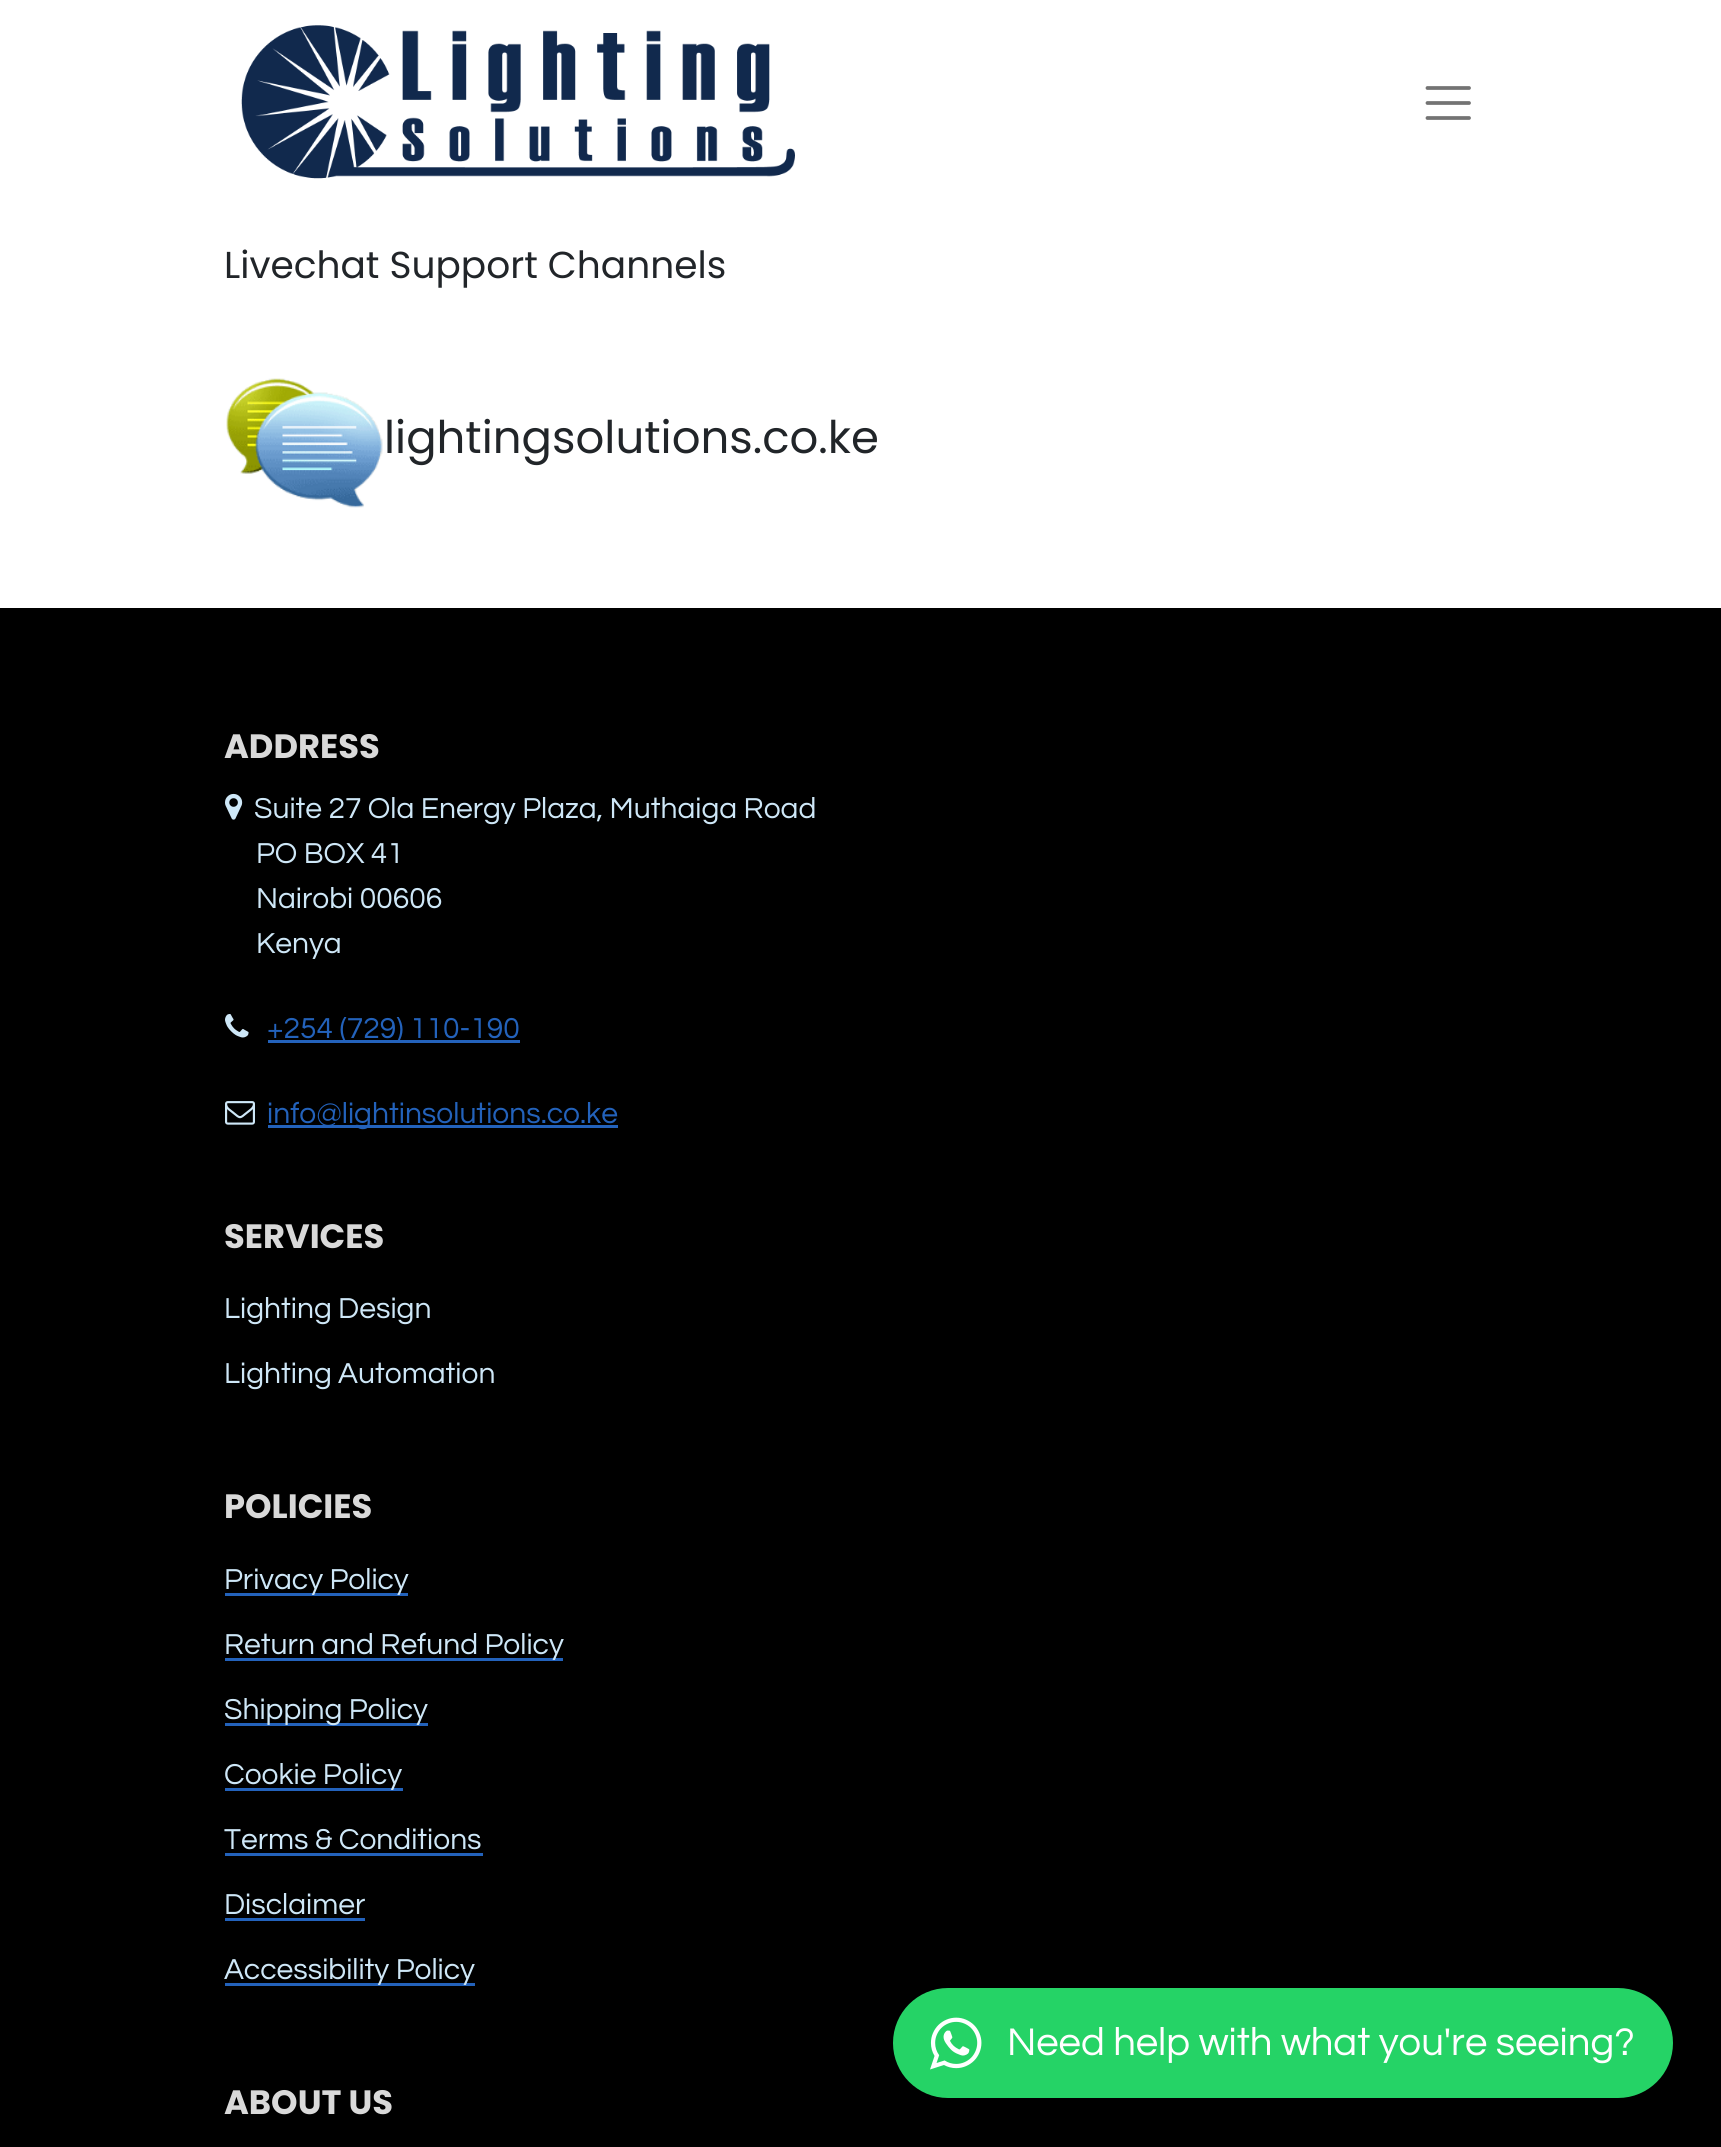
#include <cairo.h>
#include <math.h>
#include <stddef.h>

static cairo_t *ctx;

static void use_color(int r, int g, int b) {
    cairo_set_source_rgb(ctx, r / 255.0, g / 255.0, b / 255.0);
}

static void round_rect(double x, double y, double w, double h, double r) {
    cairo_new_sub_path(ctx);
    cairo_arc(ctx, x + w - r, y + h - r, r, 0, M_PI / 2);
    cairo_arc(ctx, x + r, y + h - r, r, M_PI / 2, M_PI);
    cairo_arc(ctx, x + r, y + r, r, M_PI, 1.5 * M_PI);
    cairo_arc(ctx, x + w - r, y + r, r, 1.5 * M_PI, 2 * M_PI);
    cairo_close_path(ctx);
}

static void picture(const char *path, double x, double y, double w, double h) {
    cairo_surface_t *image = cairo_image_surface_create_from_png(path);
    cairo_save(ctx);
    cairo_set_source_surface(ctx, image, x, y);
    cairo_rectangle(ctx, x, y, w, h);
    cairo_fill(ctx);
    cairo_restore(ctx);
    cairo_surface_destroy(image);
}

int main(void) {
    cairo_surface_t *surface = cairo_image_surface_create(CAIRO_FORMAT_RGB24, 1721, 2147);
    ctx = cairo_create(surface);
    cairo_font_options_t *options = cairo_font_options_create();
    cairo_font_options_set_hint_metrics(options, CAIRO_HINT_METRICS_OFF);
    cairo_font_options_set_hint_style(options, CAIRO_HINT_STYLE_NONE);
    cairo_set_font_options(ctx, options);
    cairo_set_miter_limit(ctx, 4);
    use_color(255, 255, 255);
    cairo_paint(ctx);
    picture("img1.png", 241, 25, 554, 154);
    cairo_new_path(ctx);
    cairo_move_to(ctx, 1427.5, 88);
    cairo_line_to(ctx, 1469, 88);
    cairo_move_to(ctx, 1427.5, 103);
    cairo_line_to(ctx, 1469, 103);
    cairo_move_to(ctx, 1427.5, 118);
    cairo_line_to(ctx, 1469, 118);
    use_color(115, 115, 115);
    cairo_set_line_width(ctx, 3.8);
    cairo_set_line_cap(ctx, CAIRO_LINE_CAP_ROUND);
    cairo_stroke(ctx);
    cairo_select_font_face(ctx, "Poppins", CAIRO_FONT_SLANT_NORMAL, CAIRO_FONT_WEIGHT_NORMAL);
    cairo_set_font_size(ctx, 37.5);
    use_color(33, 37, 41);
    cairo_move_to(ctx, 224, 278);
    cairo_show_text(ctx, "Livechat Support Channels");
    picture("img2.png", 226, 378, 157, 130);
    cairo_set_font_size(ctx, 45);
    cairo_move_to(ctx, 384, 453);
    cairo_show_text(ctx, "lightingsolutions.co.ke");
    use_color(0, 0, 0);
    cairo_rectangle(ctx, 0, 608, 1721, 1539);
    cairo_fill(ctx);
    cairo_select_font_face(ctx, "Poppins", CAIRO_FONT_SLANT_NORMAL, CAIRO_FONT_WEIGHT_BOLD);
    cairo_set_font_size(ctx, 33.75);
    use_color(217, 217, 217);
    cairo_move_to(ctx, 224, 758);
    cairo_show_text(ctx, "ADDRESS");
    picture("img3.png", 225, 793, 18, 27);
    cairo_select_font_face(ctx, "Questrial", CAIRO_FONT_SLANT_NORMAL, CAIRO_FONT_WEIGHT_NORMAL);
    cairo_set_font_size(ctx, 30);
    use_color(206, 231, 247);
    cairo_move_to(ctx, 254, 818);
    cairo_show_text(ctx, "Suite 27 Ola Energy Plaza, Muthaiga Road");
    cairo_move_to(ctx, 256, 863);
    cairo_show_text(ctx, "PO BOX 41");
    cairo_move_to(ctx, 256, 908);
    cairo_show_text(ctx, "Nairobi 00606");
    cairo_move_to(ctx, 256, 953);
    cairo_show_text(ctx, "Kenya");
    picture("img4.png", 225, 1014, 24, 24);
    use_color(35, 98, 187);
    cairo_rectangle(ctx, 268, 1040, 252, 3);
    cairo_fill(ctx);
    cairo_move_to(ctx, 267, 1038);
    cairo_show_text(ctx, "+254 (729) 110-190");
    picture("img5.png", 225, 1101, 30, 24);
    cairo_rectangle(ctx, 268, 1125, 350, 3);
    cairo_fill(ctx);
    cairo_move_to(ctx, 267, 1123);
    cairo_show_text(ctx, "info@lightinsolutions.co.ke");
    cairo_select_font_face(ctx, "Poppins", CAIRO_FONT_SLANT_NORMAL, CAIRO_FONT_WEIGHT_BOLD);
    cairo_set_font_size(ctx, 33.75);
    use_color(217, 217, 217);
    cairo_move_to(ctx, 224, 1248);
    cairo_show_text(ctx, "SERVICES");
    cairo_select_font_face(ctx, "Questrial", CAIRO_FONT_SLANT_NORMAL, CAIRO_FONT_WEIGHT_NORMAL);
    cairo_set_font_size(ctx, 30);
    use_color(206, 231, 247);
    cairo_move_to(ctx, 224, 1318);
    cairo_show_text(ctx, "Lighting Design");
    cairo_move_to(ctx, 224, 1383);
    cairo_show_text(ctx, "Lighting Automation");
    cairo_select_font_face(ctx, "Poppins", CAIRO_FONT_SLANT_NORMAL, CAIRO_FONT_WEIGHT_BOLD);
    cairo_set_font_size(ctx, 33.75);
    use_color(217, 217, 217);
    cairo_move_to(ctx, 224, 1518);
    cairo_show_text(ctx, "POLICIES");
    use_color(35, 98, 187);
    cairo_rectangle(ctx, 225, 1593, 183, 3);
    cairo_fill(ctx);
    cairo_select_font_face(ctx, "Questrial", CAIRO_FONT_SLANT_NORMAL, CAIRO_FONT_WEIGHT_NORMAL);
    cairo_set_font_size(ctx, 30);
    use_color(206, 231, 247);
    cairo_move_to(ctx, 224, 1589);
    cairo_show_text(ctx, "Privacy Policy");
    use_color(35, 98, 187);
    cairo_rectangle(ctx, 225, 1658, 338, 3);
    cairo_fill(ctx);
    use_color(206, 231, 247);
    cairo_move_to(ctx, 224, 1654);
    cairo_show_text(ctx, "Return and Refund Policy");
    use_color(35, 98, 187);
    cairo_rectangle(ctx, 225, 1723, 203, 3);
    cairo_fill(ctx);
    use_color(206, 231, 247);
    cairo_move_to(ctx, 224, 1719);
    cairo_show_text(ctx, "Shipping Policy");
    use_color(35, 98, 187);
    cairo_rectangle(ctx, 225, 1788, 178, 3);
    cairo_fill(ctx);
    use_color(206, 231, 247);
    cairo_move_to(ctx, 224, 1784);
    cairo_show_text(ctx, "Cookie Policy");
    cairo_move_to(ctx, 224, 1849);
    cairo_show_text(ctx, "Terms & Conditions");
    use_color(35, 98, 187);
    cairo_rectangle(ctx, 225, 1853, 258, 3);
    cairo_fill(ctx);
    use_color(206, 231, 247);
    cairo_move_to(ctx, 224, 1914);
    cairo_show_text(ctx, "Disclaimer");
    use_color(35, 98, 187);
    cairo_rectangle(ctx, 225, 1918, 140, 3);
    cairo_fill(ctx);
    cairo_rectangle(ctx, 225, 1983, 250, 3);
    cairo_fill(ctx);
    use_color(206, 231, 247);
    cairo_move_to(ctx, 224, 1979);
    cairo_show_text(ctx, "Accessibility Policy");
    use_color(37, 211, 102);
    round_rect(893, 1988, 780, 110, 55);
    cairo_fill(ctx);
    picture("img6.png", 930, 2017, 52, 53);
    cairo_set_font_size(ctx, 40);
    use_color(255, 255, 255);
    cairo_move_to(ctx, 1007, 2055);
    cairo_show_text(ctx, "Need help with what you're seeing?");
    cairo_select_font_face(ctx, "Poppins", CAIRO_FONT_SLANT_NORMAL, CAIRO_FONT_WEIGHT_BOLD);
    cairo_set_font_size(ctx, 33.75);
    use_color(217, 217, 217);
    cairo_move_to(ctx, 224, 2114);
    cairo_show_text(ctx, "ABOUT US");
    cairo_surface_write_to_png(surface, "result.png");
    cairo_font_options_destroy(options);
    cairo_destroy(ctx);
    cairo_surface_destroy(surface);
    return 0;
}
